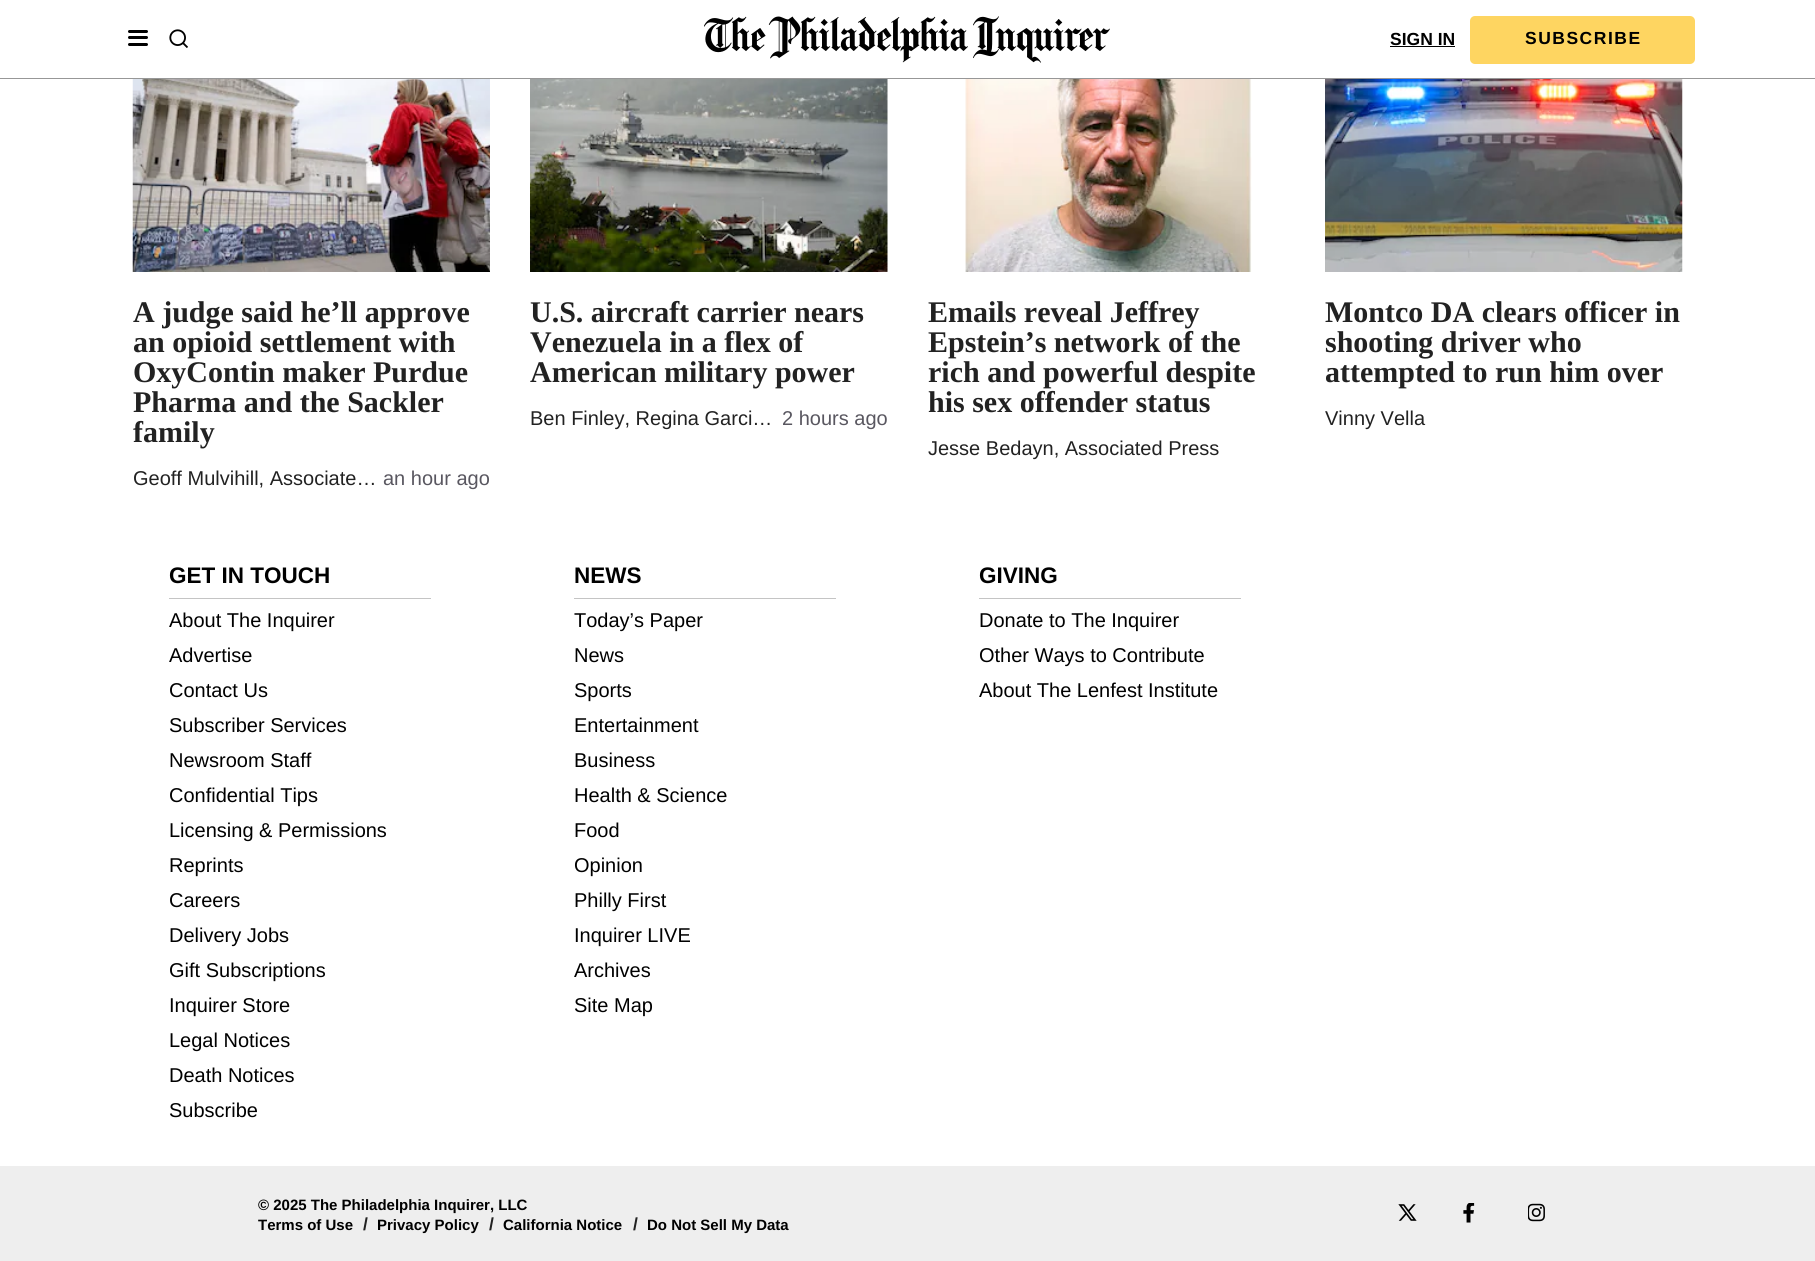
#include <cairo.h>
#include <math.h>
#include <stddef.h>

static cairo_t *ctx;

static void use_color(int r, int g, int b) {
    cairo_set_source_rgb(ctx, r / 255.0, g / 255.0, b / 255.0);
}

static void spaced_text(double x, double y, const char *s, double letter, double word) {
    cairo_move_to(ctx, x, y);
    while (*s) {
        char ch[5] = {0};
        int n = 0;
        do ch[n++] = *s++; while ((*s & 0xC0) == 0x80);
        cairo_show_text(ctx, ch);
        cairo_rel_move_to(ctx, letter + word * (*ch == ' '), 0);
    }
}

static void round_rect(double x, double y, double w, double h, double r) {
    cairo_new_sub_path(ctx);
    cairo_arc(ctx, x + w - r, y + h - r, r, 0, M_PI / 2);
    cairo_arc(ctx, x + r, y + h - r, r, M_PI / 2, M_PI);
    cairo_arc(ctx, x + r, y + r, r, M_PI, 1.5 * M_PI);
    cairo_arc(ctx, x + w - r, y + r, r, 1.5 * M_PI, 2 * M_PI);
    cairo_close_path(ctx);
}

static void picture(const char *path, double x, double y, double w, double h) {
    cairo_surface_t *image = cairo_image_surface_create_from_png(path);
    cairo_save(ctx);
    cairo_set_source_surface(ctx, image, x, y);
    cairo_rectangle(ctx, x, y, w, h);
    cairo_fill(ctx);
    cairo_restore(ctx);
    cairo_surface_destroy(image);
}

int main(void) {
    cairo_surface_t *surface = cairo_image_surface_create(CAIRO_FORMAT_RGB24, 1815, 1261);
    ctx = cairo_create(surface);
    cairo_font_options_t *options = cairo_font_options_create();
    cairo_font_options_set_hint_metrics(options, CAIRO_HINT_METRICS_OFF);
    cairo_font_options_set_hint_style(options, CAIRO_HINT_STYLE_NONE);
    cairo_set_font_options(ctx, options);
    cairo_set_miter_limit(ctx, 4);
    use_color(255, 255, 255);
    cairo_paint(ctx);
    use_color(151, 151, 151);
    cairo_rectangle(ctx, 0, 78, 1815, 1);
    cairo_fill(ctx);
    use_color(0, 0, 0);
    round_rect(128, 36, 20, 3, 1.5);
    cairo_fill(ctx);
    round_rect(128, 30, 20, 3, 1.5);
    cairo_fill(ctx);
    round_rect(128, 43, 20, 3, 1.5);
    cairo_fill(ctx);
    picture("img1.png", 169, 29, 19, 19);
    picture("img2.png", 704, 16, 406, 47);
    cairo_select_font_face(ctx, "Liberation Sans", CAIRO_FONT_SLANT_NORMAL, CAIRO_FONT_WEIGHT_BOLD);
    cairo_set_font_size(ctx, 17.5);
    cairo_move_to(ctx, 1390, 45);
    cairo_show_text(ctx, "SIGN IN");
    cairo_rectangle(ctx, 1390, 46, 65, 1);
    cairo_fill(ctx);
    use_color(254, 213, 97);
    round_rect(1470, 16, 225, 48, 5);
    cairo_fill(ctx);
    use_color(0, 0, 0);
    spaced_text(1525, 44, "SUBSCRIBE", 1.5, 0);
    picture("img3.png", 132, 79, 358, 193);
    cairo_select_font_face(ctx, "Liberation Serif", CAIRO_FONT_SLANT_NORMAL, CAIRO_FONT_WEIGHT_BOLD);
    cairo_set_font_size(ctx, 30);
    use_color(34, 34, 34);
    cairo_move_to(ctx, 133, 322);
    cairo_show_text(ctx, "A judge said he’ll approve");
    cairo_move_to(ctx, 133, 352);
    cairo_show_text(ctx, "an opioid settlement with");
    cairo_move_to(ctx, 133, 382);
    cairo_show_text(ctx, "OxyContin maker Purdue");
    cairo_move_to(ctx, 133, 412);
    cairo_show_text(ctx, "Pharma and the Sackler");
    cairo_move_to(ctx, 133, 442);
    cairo_show_text(ctx, "family");
    cairo_select_font_face(ctx, "Liberation Sans", CAIRO_FONT_SLANT_NORMAL, CAIRO_FONT_WEIGHT_NORMAL);
    cairo_set_font_size(ctx, 20);
    cairo_move_to(ctx, 133, 485);
    cairo_show_text(ctx, "Geoff Mulvihill, Associate…");
    use_color(89, 87, 96);
    cairo_move_to(ctx, 383, 485);
    cairo_show_text(ctx, "an hour ago");
    picture("img4.png", 530, 79, 358, 193);
    cairo_select_font_face(ctx, "Liberation Serif", CAIRO_FONT_SLANT_NORMAL, CAIRO_FONT_WEIGHT_BOLD);
    cairo_set_font_size(ctx, 30);
    use_color(34, 34, 34);
    cairo_move_to(ctx, 530, 322);
    cairo_show_text(ctx, "U.S. aircraft carrier nears");
    cairo_move_to(ctx, 530, 352);
    cairo_show_text(ctx, "Venezuela in a flex of");
    cairo_move_to(ctx, 530, 382);
    cairo_show_text(ctx, "American military power");
    cairo_select_font_face(ctx, "Liberation Sans", CAIRO_FONT_SLANT_NORMAL, CAIRO_FONT_WEIGHT_NORMAL);
    cairo_set_font_size(ctx, 20);
    cairo_move_to(ctx, 530, 425);
    cairo_show_text(ctx, "Ben Finley, Regina Garci…");
    use_color(89, 87, 96);
    cairo_move_to(ctx, 782, 425);
    cairo_show_text(ctx, "2 hours ago");
    picture("img5.png", 965, 79, 287, 193);
    cairo_select_font_face(ctx, "Liberation Serif", CAIRO_FONT_SLANT_NORMAL, CAIRO_FONT_WEIGHT_BOLD);
    cairo_set_font_size(ctx, 30);
    use_color(34, 34, 34);
    cairo_move_to(ctx, 928, 322);
    cairo_show_text(ctx, "Emails reveal Jeffrey");
    cairo_move_to(ctx, 928, 352);
    cairo_show_text(ctx, "Epstein’s network of the");
    cairo_move_to(ctx, 928, 382);
    cairo_show_text(ctx, "rich and powerful despite");
    cairo_move_to(ctx, 928, 412);
    cairo_show_text(ctx, "his sex offender status");
    cairo_select_font_face(ctx, "Liberation Sans", CAIRO_FONT_SLANT_NORMAL, CAIRO_FONT_WEIGHT_NORMAL);
    cairo_set_font_size(ctx, 20);
    cairo_move_to(ctx, 928, 455);
    cairo_show_text(ctx, "Jesse Bedayn, Associated Press");
    picture("img6.png", 1325, 79, 358, 193);
    cairo_select_font_face(ctx, "Liberation Serif", CAIRO_FONT_SLANT_NORMAL, CAIRO_FONT_WEIGHT_BOLD);
    cairo_set_font_size(ctx, 30);
    cairo_move_to(ctx, 1325, 322);
    cairo_show_text(ctx, "Montco DA clears officer in");
    cairo_move_to(ctx, 1325, 352);
    cairo_show_text(ctx, "shooting driver who");
    cairo_move_to(ctx, 1325, 382);
    cairo_show_text(ctx, "attempted to run him over");
    cairo_select_font_face(ctx, "Liberation Sans", CAIRO_FONT_SLANT_NORMAL, CAIRO_FONT_WEIGHT_NORMAL);
    cairo_set_font_size(ctx, 20);
    cairo_move_to(ctx, 1325, 425);
    cairo_show_text(ctx, "Vinny Vella");
    use_color(196, 196, 196);
    cairo_rectangle(ctx, 169, 598, 262, 1);
    cairo_fill(ctx);
    cairo_select_font_face(ctx, "Liberation Sans", CAIRO_FONT_SLANT_NORMAL, CAIRO_FONT_WEIGHT_BOLD);
    cairo_set_font_size(ctx, 22.5);
    use_color(0, 0, 0);
    cairo_move_to(ctx, 169, 583);
    cairo_show_text(ctx, "GET IN TOUCH");
    cairo_select_font_face(ctx, "Liberation Sans", CAIRO_FONT_SLANT_NORMAL, CAIRO_FONT_WEIGHT_NORMAL);
    cairo_set_font_size(ctx, 20);
    cairo_move_to(ctx, 169, 627);
    cairo_show_text(ctx, "About The Inquirer");
    cairo_move_to(ctx, 169, 662);
    cairo_show_text(ctx, "Advertise");
    cairo_move_to(ctx, 169, 697);
    cairo_show_text(ctx, "Contact Us");
    cairo_move_to(ctx, 169, 732);
    cairo_show_text(ctx, "Subscriber Services");
    cairo_move_to(ctx, 169, 767);
    cairo_show_text(ctx, "Newsroom Staff");
    cairo_move_to(ctx, 169, 802);
    cairo_show_text(ctx, "Confidential Tips");
    cairo_move_to(ctx, 169, 837);
    cairo_show_text(ctx, "Licensing & Permissions");
    cairo_move_to(ctx, 169, 872);
    cairo_show_text(ctx, "Reprints");
    cairo_move_to(ctx, 169, 907);
    cairo_show_text(ctx, "Careers");
    cairo_move_to(ctx, 169, 942);
    cairo_show_text(ctx, "Delivery Jobs");
    cairo_move_to(ctx, 169, 977);
    cairo_show_text(ctx, "Gift Subscriptions");
    cairo_move_to(ctx, 169, 1012);
    cairo_show_text(ctx, "Inquirer Store");
    cairo_move_to(ctx, 169, 1047);
    cairo_show_text(ctx, "Legal Notices");
    cairo_move_to(ctx, 169, 1082);
    cairo_show_text(ctx, "Death Notices");
    cairo_move_to(ctx, 169, 1117);
    cairo_show_text(ctx, "Subscribe");
    use_color(196, 196, 196);
    cairo_rectangle(ctx, 574, 598, 262, 1);
    cairo_fill(ctx);
    cairo_select_font_face(ctx, "Liberation Sans", CAIRO_FONT_SLANT_NORMAL, CAIRO_FONT_WEIGHT_BOLD);
    cairo_set_font_size(ctx, 22.5);
    use_color(0, 0, 0);
    cairo_move_to(ctx, 574, 583);
    cairo_show_text(ctx, "NEWS");
    cairo_select_font_face(ctx, "Liberation Sans", CAIRO_FONT_SLANT_NORMAL, CAIRO_FONT_WEIGHT_NORMAL);
    cairo_set_font_size(ctx, 20);
    cairo_move_to(ctx, 574, 627);
    cairo_show_text(ctx, "Today’s Paper");
    cairo_move_to(ctx, 574, 662);
    cairo_show_text(ctx, "News");
    cairo_move_to(ctx, 574, 697);
    cairo_show_text(ctx, "Sports");
    cairo_move_to(ctx, 574, 732);
    cairo_show_text(ctx, "Entertainment");
    cairo_move_to(ctx, 574, 767);
    cairo_show_text(ctx, "Business");
    cairo_move_to(ctx, 574, 802);
    cairo_show_text(ctx, "Health & Science");
    cairo_move_to(ctx, 574, 837);
    cairo_show_text(ctx, "Food");
    cairo_move_to(ctx, 574, 872);
    cairo_show_text(ctx, "Opinion");
    cairo_move_to(ctx, 574, 907);
    cairo_show_text(ctx, "Philly First");
    cairo_move_to(ctx, 574, 942);
    cairo_show_text(ctx, "Inquirer LIVE");
    cairo_move_to(ctx, 574, 977);
    cairo_show_text(ctx, "Archives");
    cairo_move_to(ctx, 574, 1012);
    cairo_show_text(ctx, "Site Map");
    use_color(196, 196, 196);
    cairo_rectangle(ctx, 979, 598, 262, 1);
    cairo_fill(ctx);
    cairo_select_font_face(ctx, "Liberation Sans", CAIRO_FONT_SLANT_NORMAL, CAIRO_FONT_WEIGHT_BOLD);
    cairo_set_font_size(ctx, 22.5);
    use_color(0, 0, 0);
    cairo_move_to(ctx, 979, 583);
    cairo_show_text(ctx, "GIVING");
    cairo_select_font_face(ctx, "Liberation Sans", CAIRO_FONT_SLANT_NORMAL, CAIRO_FONT_WEIGHT_NORMAL);
    cairo_set_font_size(ctx, 20);
    cairo_move_to(ctx, 979, 627);
    cairo_show_text(ctx, "Donate to The Inquirer");
    cairo_move_to(ctx, 979, 662);
    cairo_show_text(ctx, "Other Ways to Contribute");
    cairo_move_to(ctx, 979, 697);
    cairo_show_text(ctx, "About The Lenfest Institute");
    use_color(238, 238, 238);
    cairo_rectangle(ctx, 0, 1166, 1815, 95);
    cairo_fill(ctx);
    cairo_select_font_face(ctx, "Liberation Sans", CAIRO_FONT_SLANT_NORMAL, CAIRO_FONT_WEIGHT_BOLD);
    cairo_set_font_size(ctx, 15);
    use_color(0, 0, 0);
    cairo_move_to(ctx, 258, 1210);
    cairo_show_text(ctx, "© 2025 The Philadelphia Inquirer, LLC");
    cairo_move_to(ctx, 258, 1230);
    cairo_show_text(ctx, "Terms of Use");
    cairo_set_font_size(ctx, 17.5);
    use_color(34, 34, 34);
    cairo_move_to(ctx, 363, 1230);
    cairo_show_text(ctx, "/");
    cairo_set_font_size(ctx, 15);
    use_color(0, 0, 0);
    cairo_move_to(ctx, 377, 1230);
    cairo_show_text(ctx, "Privacy Policy");
    cairo_set_font_size(ctx, 17.5);
    use_color(34, 34, 34);
    cairo_move_to(ctx, 489, 1230);
    cairo_show_text(ctx, "/");
    cairo_set_font_size(ctx, 15);
    use_color(0, 0, 0);
    cairo_move_to(ctx, 503, 1230);
    cairo_show_text(ctx, "California Notice");
    cairo_set_font_size(ctx, 17.5);
    use_color(34, 34, 34);
    cairo_move_to(ctx, 633, 1230);
    cairo_show_text(ctx, "/");
    cairo_set_font_size(ctx, 15);
    use_color(0, 0, 0);
    cairo_move_to(ctx, 647, 1230);
    cairo_show_text(ctx, "Do Not Sell My Data");
    picture("img7.png", 1398, 1204, 19, 17);
    picture("img8.png", 1463, 1203, 12, 20);
    picture("img9.png", 1528, 1203, 17, 19);
    cairo_surface_write_to_png(surface, "result.png");
    cairo_font_options_destroy(options);
    cairo_destroy(ctx);
    cairo_surface_destroy(surface);
    return 0;
}
